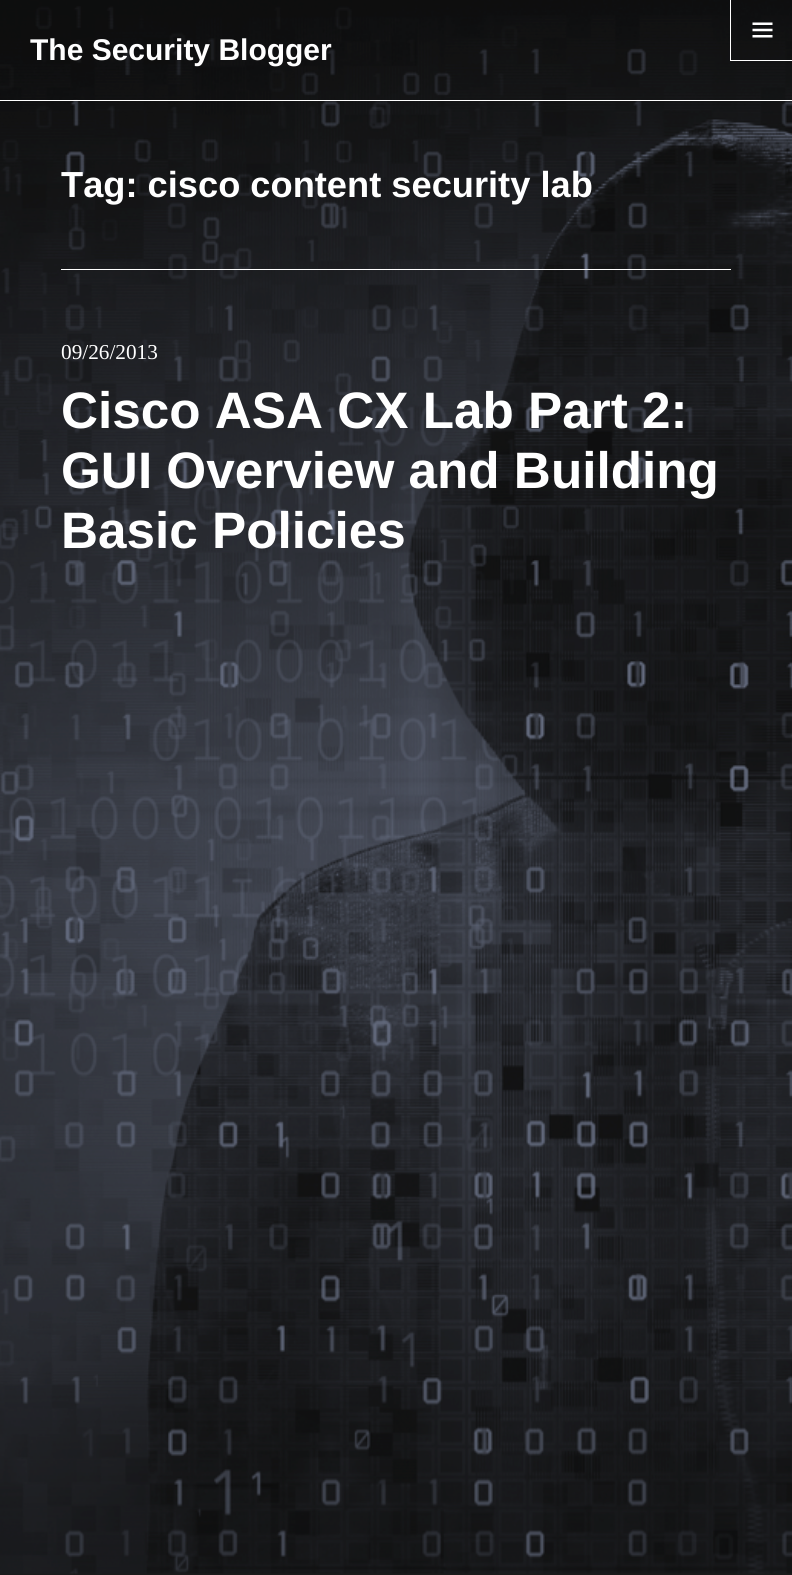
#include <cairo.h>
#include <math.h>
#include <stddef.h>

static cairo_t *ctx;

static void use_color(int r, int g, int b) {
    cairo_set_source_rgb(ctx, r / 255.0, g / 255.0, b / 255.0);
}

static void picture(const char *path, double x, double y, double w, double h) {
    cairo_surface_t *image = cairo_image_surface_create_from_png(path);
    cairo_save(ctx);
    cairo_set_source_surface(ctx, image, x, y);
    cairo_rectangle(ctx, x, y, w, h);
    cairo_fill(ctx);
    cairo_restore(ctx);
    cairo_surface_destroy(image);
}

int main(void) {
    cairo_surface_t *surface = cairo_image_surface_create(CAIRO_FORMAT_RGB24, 792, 1575);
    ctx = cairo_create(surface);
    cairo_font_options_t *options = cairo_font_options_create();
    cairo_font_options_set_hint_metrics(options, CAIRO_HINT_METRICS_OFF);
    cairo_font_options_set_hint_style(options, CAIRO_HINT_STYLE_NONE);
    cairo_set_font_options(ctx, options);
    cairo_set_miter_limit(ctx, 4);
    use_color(26, 26, 26);
    cairo_paint(ctx);
    picture("img1.png", 0, 0, 792, 1575);
    use_color(255, 255, 255);
    cairo_rectangle(ctx, 0, 100, 792, 1);
    cairo_fill(ctx);
    cairo_select_font_face(ctx, "Liberation Sans", CAIRO_FONT_SLANT_NORMAL, CAIRO_FONT_WEIGHT_BOLD);
    cairo_set_font_size(ctx, 30);
    cairo_move_to(ctx, 30, 60);
    cairo_show_text(ctx, "The Security Blogger");
    cairo_rectangle(ctx, 730, 60, 62, 1);
    cairo_fill(ctx);
    cairo_rectangle(ctx, 730, 0, 1, 61);
    cairo_fill(ctx);
    picture("img2.png", 752, 22, 21, 16);
    cairo_rectangle(ctx, 61, 269, 670, 1);
    cairo_fill(ctx);
    cairo_set_font_size(ctx, 36.25);
    cairo_move_to(ctx, 61, 197);
    cairo_show_text(ctx, "Tag: cisco content security lab");
    cairo_select_font_face(ctx, "Liberation Serif", CAIRO_FONT_SLANT_NORMAL, CAIRO_FONT_WEIGHT_NORMAL);
    cairo_set_font_size(ctx, 21.25);
    cairo_move_to(ctx, 61, 359);
    cairo_show_text(ctx, "09/26/2013");
    cairo_select_font_face(ctx, "Liberation Sans", CAIRO_FONT_SLANT_NORMAL, CAIRO_FONT_WEIGHT_BOLD);
    cairo_set_font_size(ctx, 51.25);
    cairo_move_to(ctx, 61, 428);
    cairo_show_text(ctx, "Cisco ASA CX Lab Part 2:");
    cairo_move_to(ctx, 61, 488);
    cairo_show_text(ctx, "GUI Overview and Building");
    cairo_move_to(ctx, 61, 548);
    cairo_show_text(ctx, "Basic Policies");
    cairo_surface_write_to_png(surface, "result.png");
    cairo_font_options_destroy(options);
    cairo_destroy(ctx);
    cairo_surface_destroy(surface);
    return 0;
}
